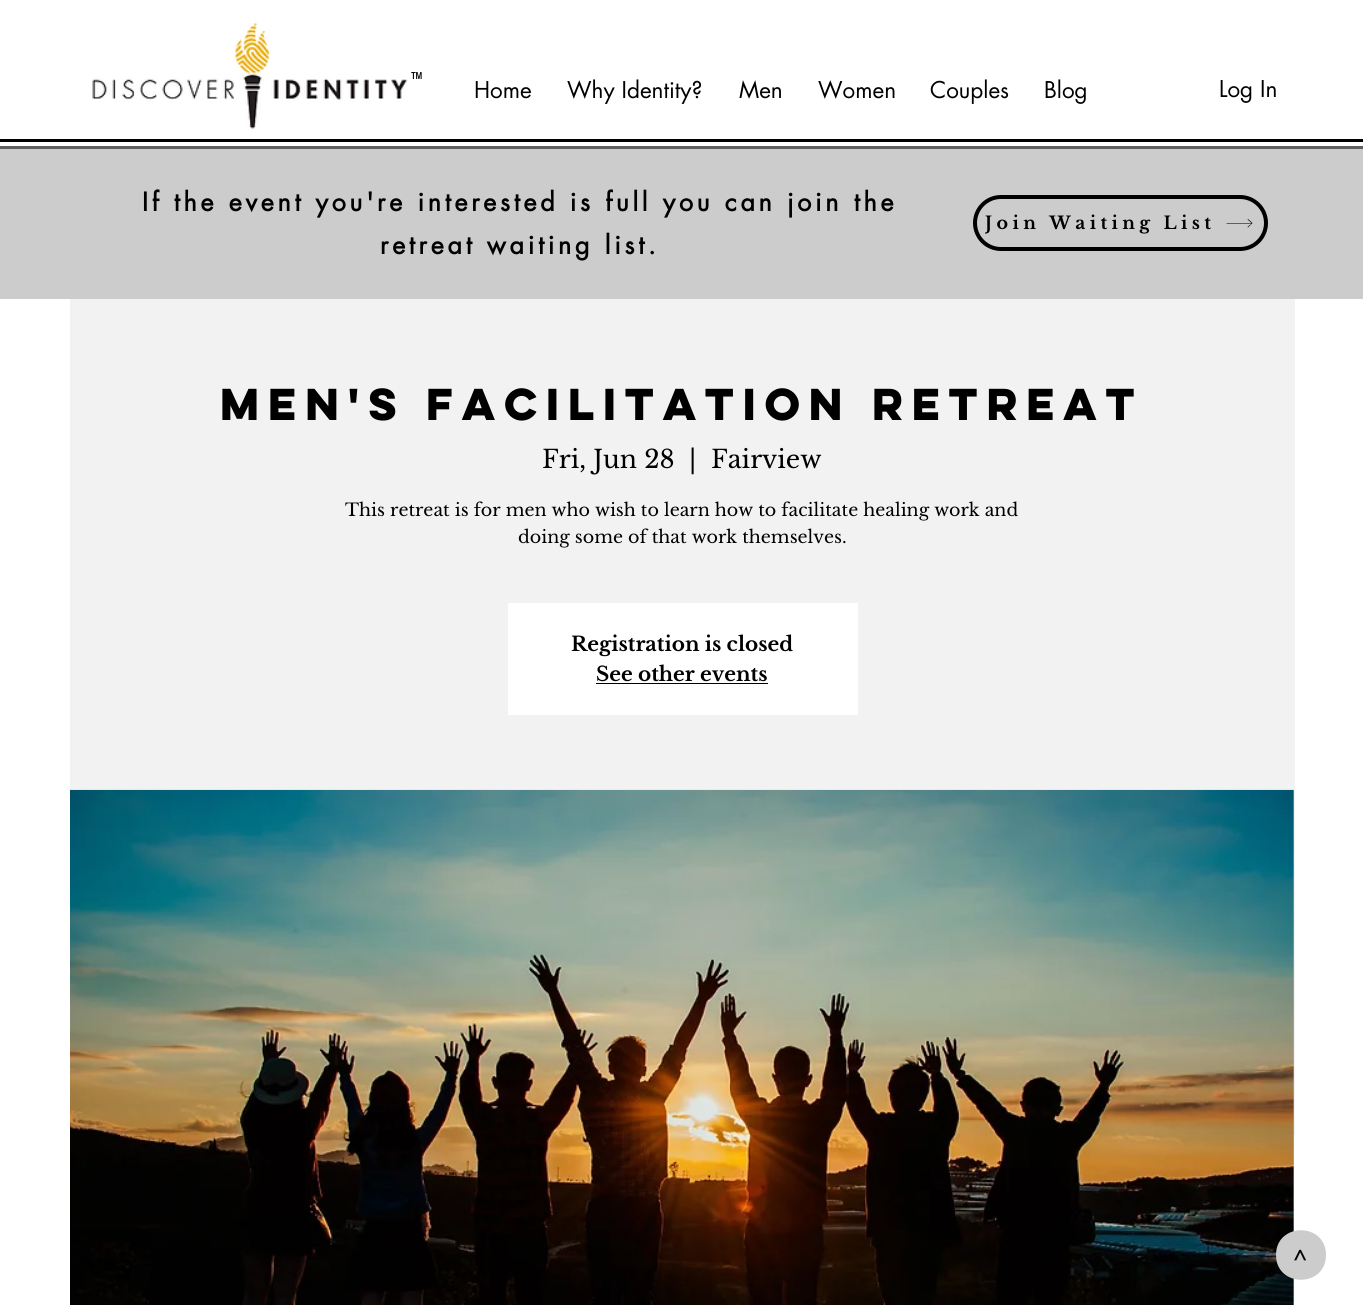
#include <cairo.h>
#include <math.h>
#include <stddef.h>

static cairo_t *ctx;

static void use_color(int r, int g, int b) {
    cairo_set_source_rgb(ctx, r / 255.0, g / 255.0, b / 255.0);
}

static void spaced_text(double x, double y, const char *s, double letter, double word) {
    cairo_move_to(ctx, x, y);
    while (*s) {
        char ch[5] = {0};
        int n = 0;
        do ch[n++] = *s++; while ((*s & 0xC0) == 0x80);
        cairo_show_text(ctx, ch);
        cairo_rel_move_to(ctx, letter + word * (*ch == ' '), 0);
    }
}

static void round_rect(double x, double y, double w, double h, double r) {
    cairo_new_sub_path(ctx);
    cairo_arc(ctx, x + w - r, y + h - r, r, 0, M_PI / 2);
    cairo_arc(ctx, x + r, y + h - r, r, M_PI / 2, M_PI);
    cairo_arc(ctx, x + r, y + r, r, M_PI, 1.5 * M_PI);
    cairo_arc(ctx, x + w - r, y + r, r, 1.5 * M_PI, 2 * M_PI);
    cairo_close_path(ctx);
}

static void picture(const char *path, double x, double y, double w, double h) {
    cairo_surface_t *image = cairo_image_surface_create_from_png(path);
    cairo_save(ctx);
    cairo_set_source_surface(ctx, image, x, y);
    cairo_rectangle(ctx, x, y, w, h);
    cairo_fill(ctx);
    cairo_restore(ctx);
    cairo_surface_destroy(image);
}

int main(void) {
    cairo_surface_t *surface = cairo_image_surface_create(CAIRO_FORMAT_RGB24, 1363, 1305);
    ctx = cairo_create(surface);
    cairo_font_options_t *options = cairo_font_options_create();
    cairo_font_options_set_hint_metrics(options, CAIRO_HINT_METRICS_OFF);
    cairo_font_options_set_hint_style(options, CAIRO_HINT_STYLE_NONE);
    cairo_set_font_options(ctx, options);
    cairo_set_miter_limit(ctx, 4);
    use_color(255, 255, 255);
    cairo_paint(ctx);
    picture("img1.png", 92, 23, 316, 106);
    cairo_select_font_face(ctx, "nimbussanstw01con", CAIRO_FONT_SLANT_NORMAL, CAIRO_FONT_WEIGHT_BOLD);
    cairo_set_font_size(ctx, 10);
    use_color(0, 0, 0);
    cairo_move_to(ctx, 411, 79);
    cairo_show_text(ctx, "TM");
    cairo_select_font_face(ctx, "futura", CAIRO_FONT_SLANT_NORMAL, CAIRO_FONT_WEIGHT_NORMAL);
    cairo_set_font_size(ctx, 22.5);
    cairo_move_to(ctx, 474, 98);
    cairo_show_text(ctx, "Home");
    cairo_move_to(ctx, 567, 98);
    cairo_show_text(ctx, "Why Identity?");
    cairo_move_to(ctx, 739, 98);
    cairo_show_text(ctx, "Men");
    cairo_move_to(ctx, 818, 98);
    cairo_show_text(ctx, "Women");
    cairo_move_to(ctx, 930, 98);
    cairo_show_text(ctx, "Couples");
    cairo_move_to(ctx, 1044, 98);
    cairo_show_text(ctx, "Blog");
    cairo_move_to(ctx, 1219, 97);
    cairo_show_text(ctx, "Log In");
    cairo_rectangle(ctx, 0, 139, 1363, 3);
    cairo_fill(ctx);
    use_color(96, 94, 94);
    cairo_rectangle(ctx, 0, 146, 1363, 3);
    cairo_fill(ctx);
    use_color(204, 204, 204);
    cairo_rectangle(ctx, 0, 149, 1363, 150);
    cairo_fill(ctx);
    cairo_select_font_face(ctx, "futura", CAIRO_FONT_SLANT_NORMAL, CAIRO_FONT_WEIGHT_BOLD);
    cairo_set_font_size(ctx, 25);
    use_color(0, 0, 0);
    spaced_text(142, 211, "If the event you're interested is full you can join the", 3.75, 0);
    spaced_text(380, 254, "retreat waiting list.", 3.75, 0);
    round_rect(975, 197, 291, 52, 26);
    cairo_set_line_width(ctx, 4);
    cairo_stroke(ctx);
    cairo_save(ctx);
    cairo_rectangle(ctx, 985, 213, 230, 22);
    cairo_clip(ctx);
    cairo_select_font_face(ctx, "Libre Baskerville", CAIRO_FONT_SLANT_NORMAL, CAIRO_FONT_WEIGHT_BOLD);
    cairo_set_font_size(ctx, 17.5);
    spaced_text(985, 229, "Join Waiting List", 4.4, 0);
    cairo_restore(ctx);
    cairo_new_path(ctx);
    cairo_move_to(ctx, 1248, 219);
    cairo_line_to(ctx, 1247.5, 219.5);
    cairo_line_to(ctx, 1251.5, 223);
    cairo_line_to(ctx, 1226.5, 223);
    cairo_line_to(ctx, 1226.5, 223.5);
    cairo_line_to(ctx, 1251.5, 223.5);
    cairo_line_to(ctx, 1247.5, 227);
    cairo_line_to(ctx, 1248, 227.5);
    cairo_line_to(ctx, 1252.5, 223);
    cairo_close_path(ctx);
    cairo_fill(ctx);
    use_color(242, 242, 242);
    cairo_rectangle(ctx, 70, 299, 1225, 836);
    cairo_fill(ctx);
    cairo_select_font_face(ctx, "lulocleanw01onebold", CAIRO_FONT_SLANT_NORMAL, CAIRO_FONT_WEIGHT_BOLD);
    cairo_set_font_size(ctx, 40);
    use_color(0, 0, 0);
    cairo_move_to(ctx, 220, 420);
    cairo_show_text(ctx, "MEN'S FACILITATION RETREAT");
    cairo_select_font_face(ctx, "Libre Baskerville", CAIRO_FONT_SLANT_NORMAL, CAIRO_FONT_WEIGHT_NORMAL);
    cairo_set_font_size(ctx, 25);
    cairo_move_to(ctx, 542, 468);
    cairo_show_text(ctx, "Fri, Jun 28");
    cairo_move_to(ctx, 689, 468);
    cairo_show_text(ctx, "|");
    cairo_move_to(ctx, 711, 468);
    cairo_show_text(ctx, "Fairview");
    cairo_set_font_size(ctx, 17.5);
    cairo_move_to(ctx, 345, 516);
    cairo_show_text(ctx, "This retreat is for men who wish to learn how to facilitate healing work and");
    cairo_move_to(ctx, 518, 543);
    cairo_show_text(ctx, "doing some of that work themselves.");
    use_color(255, 255, 255);
    cairo_rectangle(ctx, 508, 603, 350, 112);
    cairo_fill(ctx);
    cairo_select_font_face(ctx, "Libre Baskerville", CAIRO_FONT_SLANT_NORMAL, CAIRO_FONT_WEIGHT_BOLD);
    cairo_set_font_size(ctx, 20);
    use_color(0, 0, 0);
    cairo_move_to(ctx, 571, 651);
    cairo_show_text(ctx, "Registration is closed");
    cairo_move_to(ctx, 596, 681);
    cairo_show_text(ctx, "See other events");
    cairo_rectangle(ctx, 596, 683, 172, 1);
    cairo_fill(ctx);
    use_color(148, 188, 255);
    cairo_rectangle(ctx, 1293, 790, 1, 515);
    cairo_fill(ctx);
    picture("img2.png", 70, 789, 1224, 516);
    use_color(204, 204, 204);
    cairo_new_path(ctx);
    cairo_move_to(ctx, 1276, 1255);
    cairo_curve_to(ctx, 1276, 1222, 1326, 1222, 1326, 1255);
    cairo_curve_to(ctx, 1326, 1288, 1276, 1288, 1276, 1255);
    cairo_close_path(ctx);
    cairo_fill(ctx);
    cairo_select_font_face(ctx, "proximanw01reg", CAIRO_FONT_SLANT_NORMAL, CAIRO_FONT_WEIGHT_BOLD);
    cairo_set_font_size(ctx, 22.5);
    use_color(0, 0, 0);
    cairo_save(ctx);
    cairo_translate(ctx, 1308, 1261);
    cairo_rotate(ctx, -90 * M_PI / 180);
    cairo_move_to(ctx, 0, 0);
    cairo_show_text(ctx, ">");
    cairo_restore(ctx);
    cairo_surface_write_to_png(surface, "result.png");
    cairo_font_options_destroy(options);
    cairo_destroy(ctx);
    cairo_surface_destroy(surface);
    return 0;
}
